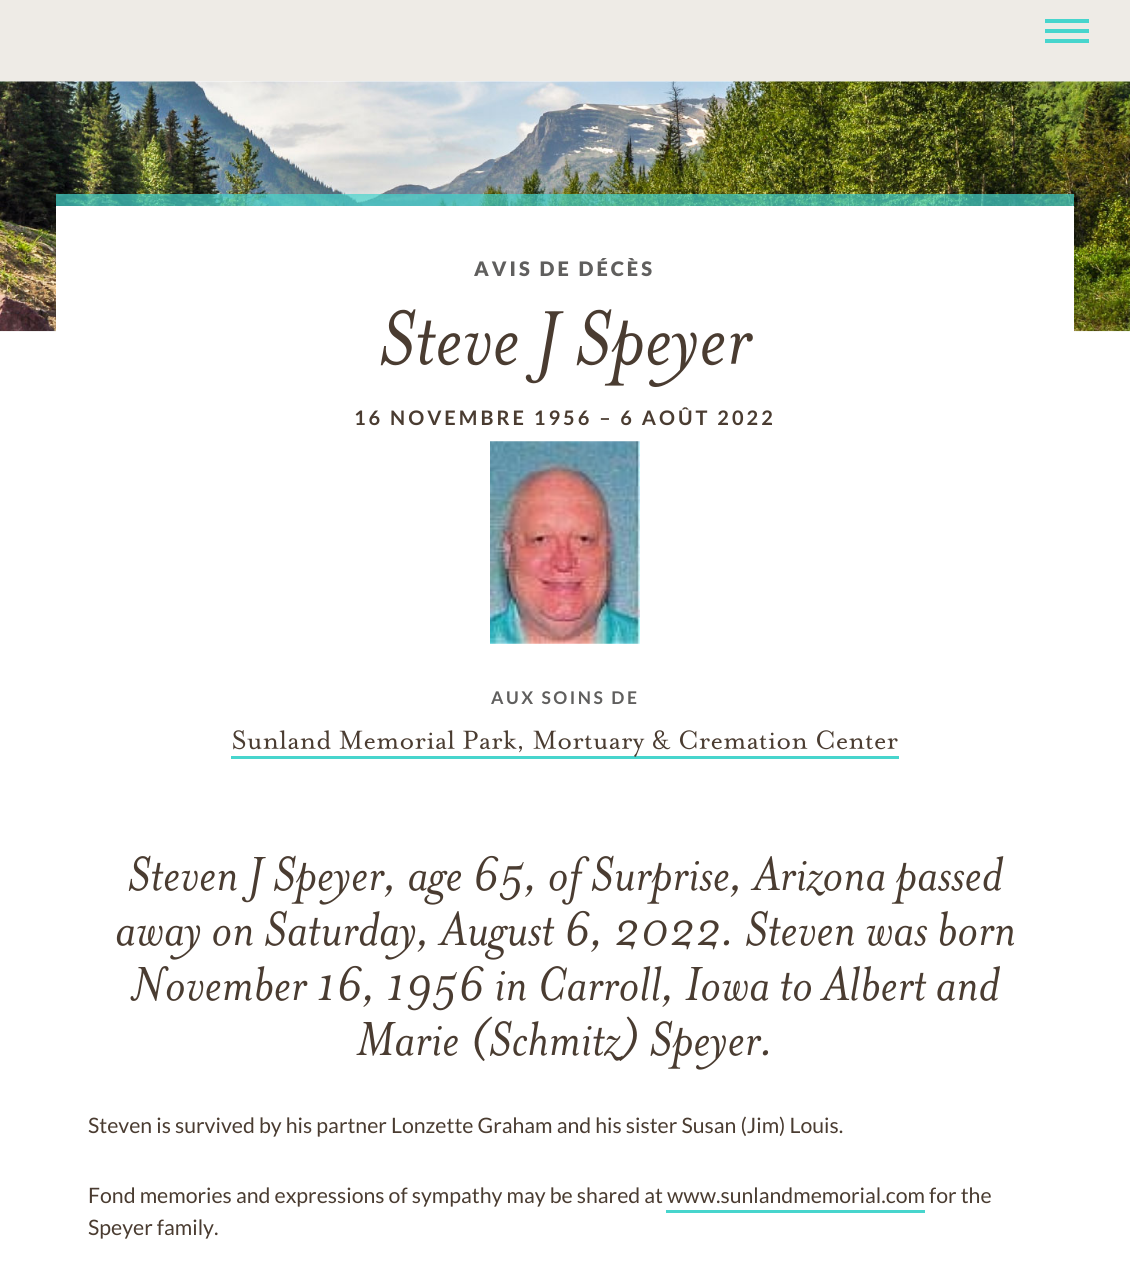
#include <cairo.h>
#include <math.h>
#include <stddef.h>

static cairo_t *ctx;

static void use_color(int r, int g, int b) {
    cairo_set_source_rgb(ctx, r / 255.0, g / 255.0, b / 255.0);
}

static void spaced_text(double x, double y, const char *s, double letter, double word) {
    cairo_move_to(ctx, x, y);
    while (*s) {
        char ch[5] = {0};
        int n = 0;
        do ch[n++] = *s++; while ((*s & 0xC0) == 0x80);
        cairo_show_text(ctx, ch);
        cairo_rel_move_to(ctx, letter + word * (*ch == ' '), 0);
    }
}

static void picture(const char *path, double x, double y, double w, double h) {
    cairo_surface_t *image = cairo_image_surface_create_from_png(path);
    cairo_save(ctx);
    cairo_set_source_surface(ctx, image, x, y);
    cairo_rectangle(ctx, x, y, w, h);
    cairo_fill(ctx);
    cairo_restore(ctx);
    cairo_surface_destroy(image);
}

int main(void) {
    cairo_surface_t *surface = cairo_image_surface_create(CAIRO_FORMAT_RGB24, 1130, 1274);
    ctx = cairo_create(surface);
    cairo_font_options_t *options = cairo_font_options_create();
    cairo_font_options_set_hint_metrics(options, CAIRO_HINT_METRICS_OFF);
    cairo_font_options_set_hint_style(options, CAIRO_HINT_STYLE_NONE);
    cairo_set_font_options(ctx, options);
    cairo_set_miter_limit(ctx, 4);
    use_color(255, 255, 255);
    cairo_paint(ctx);
    use_color(238, 235, 230);
    cairo_rectangle(ctx, 0, 0, 1130, 81);
    cairo_fill(ctx);
    use_color(71, 213, 205);
    cairo_rectangle(ctx, 1045, 19, 44, 4);
    cairo_fill(ctx);
    cairo_rectangle(ctx, 1045, 29, 44, 4);
    cairo_fill(ctx);
    cairo_rectangle(ctx, 1045, 39, 44, 4);
    cairo_fill(ctx);
    picture("img1.png", 0, 81, 1130, 251);
    use_color(255, 255, 255);
    cairo_rectangle(ctx, 56, 206, 1018, 126);
    cairo_fill(ctx);
    cairo_set_source_rgba(ctx, 0.278, 0.835, 0.804, 0.7);
    cairo_rectangle(ctx, 56, 194, 1018, 12);
    cairo_fill(ctx);
    cairo_select_font_face(ctx, "Lato Black", CAIRO_FONT_SLANT_NORMAL, CAIRO_FONT_WEIGHT_NORMAL);
    cairo_set_font_size(ctx, 20);
    use_color(96, 95, 94);
    spaced_text(474, 276, "AVIS DE DÉCÈS", 3, 0);
    picture("img2.png", 380, 309, 373, 78);
    cairo_select_font_face(ctx, "Lato", CAIRO_FONT_SLANT_NORMAL, CAIRO_FONT_WEIGHT_BOLD);
    use_color(74, 60, 49);
    spaced_text(354, 425, "16 NOVEMBRE 1956 – 6 AOÛT 2022", 3, 0);
    picture("img3.png", 490, 441, 150, 203);
    cairo_set_font_size(ctx, 17.5);
    use_color(96, 95, 94);
    spaced_text(491, 704, "AUX SOINS DE", 2.5, 0);
    use_color(71, 213, 205);
    cairo_rectangle(ctx, 231, 756, 668, 3);
    cairo_fill(ctx);
    picture("img4.png", 233, 730, 665, 27);
    picture("img5.png", 128, 855, 876, 50);
    picture("img6.png", 116, 910, 899, 50);
    picture("img7.png", 130, 965, 870, 46);
    picture("img8.png", 356, 1016, 413, 54);
    cairo_select_font_face(ctx, "Lato", CAIRO_FONT_SLANT_NORMAL, CAIRO_FONT_WEIGHT_NORMAL);
    cairo_set_font_size(ctx, 21.25);
    use_color(74, 60, 49);
    cairo_move_to(ctx, 88, 1133);
    cairo_show_text(ctx, "Steven is survived by his partner Lonzette Graham and his sister Susan (Jim) Louis.");
    cairo_move_to(ctx, 88, 1203);
    cairo_show_text(ctx, "Fond memories and expressions of sympathy may be shared at www.sunlandmemorial.com for the");
    use_color(71, 213, 205);
    cairo_rectangle(ctx, 666, 1210, 259, 3);
    cairo_fill(ctx);
    use_color(74, 60, 49);
    cairo_move_to(ctx, 88, 1235);
    cairo_show_text(ctx, "Speyer family.");
    cairo_surface_write_to_png(surface, "result.png");
    cairo_font_options_destroy(options);
    cairo_destroy(ctx);
    cairo_surface_destroy(surface);
    return 0;
}
